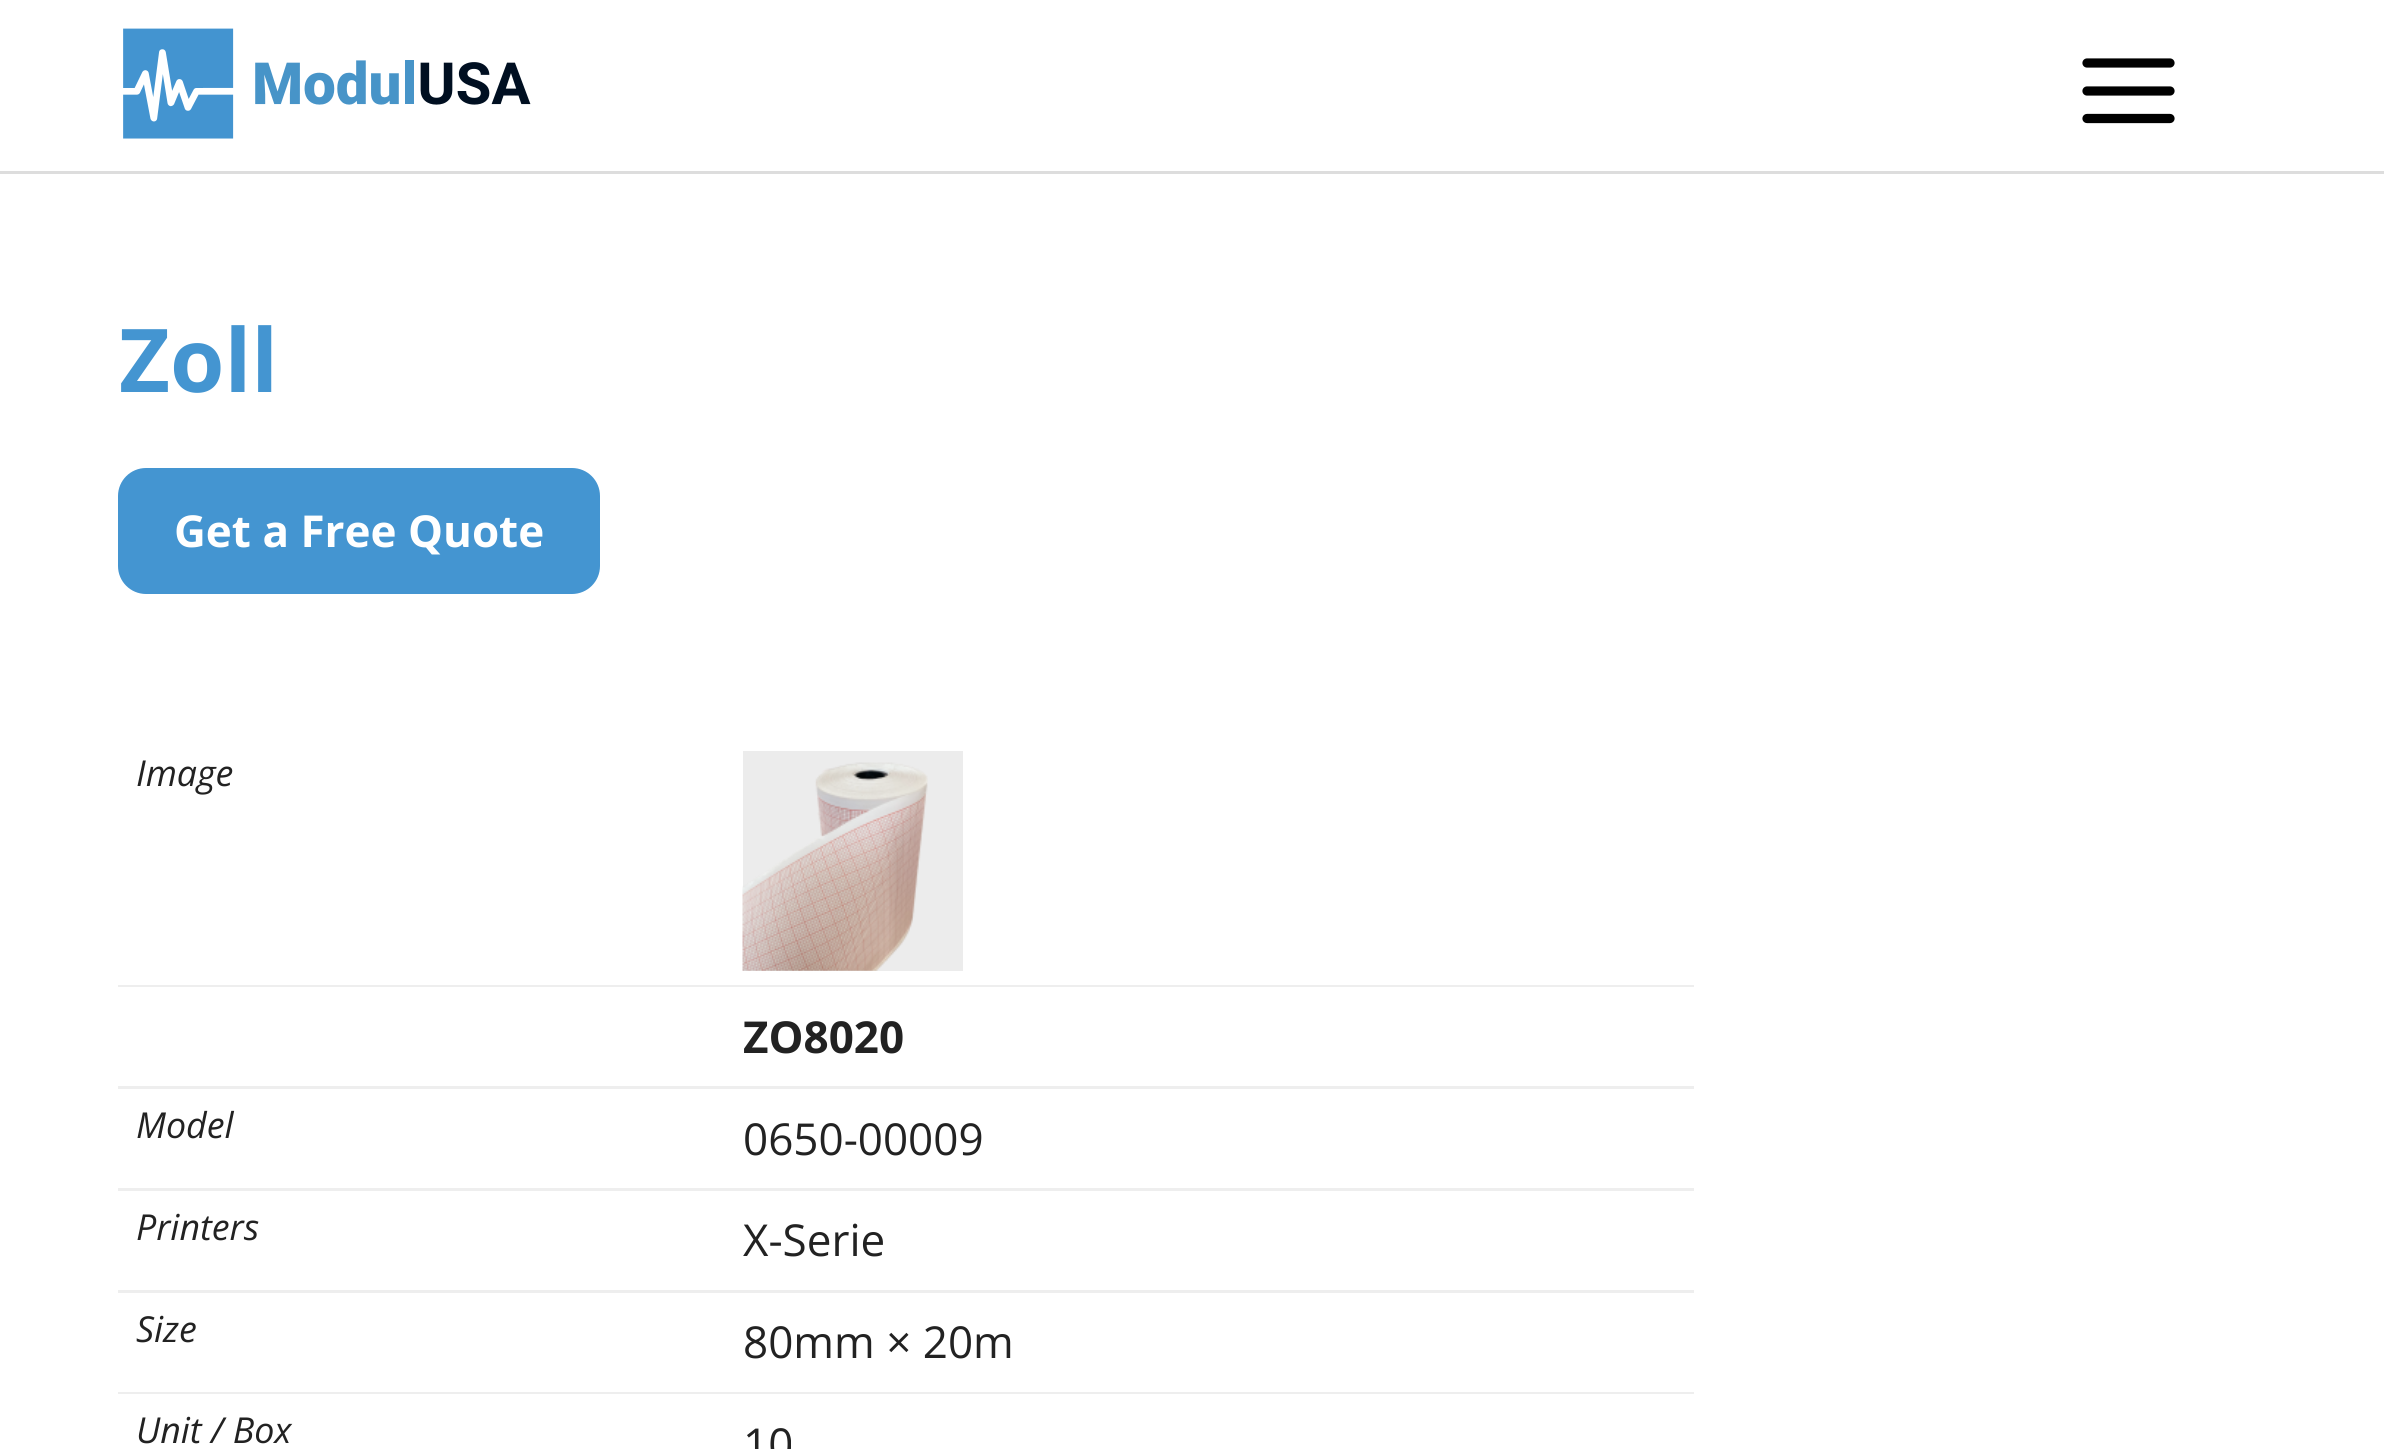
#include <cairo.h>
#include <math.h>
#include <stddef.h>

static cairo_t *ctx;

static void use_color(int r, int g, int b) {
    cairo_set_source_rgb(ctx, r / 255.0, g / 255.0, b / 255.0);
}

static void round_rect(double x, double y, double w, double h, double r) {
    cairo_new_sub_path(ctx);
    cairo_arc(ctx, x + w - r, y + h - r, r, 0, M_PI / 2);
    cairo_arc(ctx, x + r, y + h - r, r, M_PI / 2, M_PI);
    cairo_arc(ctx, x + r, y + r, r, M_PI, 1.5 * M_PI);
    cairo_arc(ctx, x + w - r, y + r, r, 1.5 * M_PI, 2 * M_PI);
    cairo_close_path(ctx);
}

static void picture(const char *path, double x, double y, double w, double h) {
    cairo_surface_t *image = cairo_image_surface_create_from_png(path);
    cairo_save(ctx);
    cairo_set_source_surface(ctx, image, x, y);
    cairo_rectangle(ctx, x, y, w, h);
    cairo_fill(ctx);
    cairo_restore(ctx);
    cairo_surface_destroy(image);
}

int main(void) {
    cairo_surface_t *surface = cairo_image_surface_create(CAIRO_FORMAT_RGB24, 2384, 1449);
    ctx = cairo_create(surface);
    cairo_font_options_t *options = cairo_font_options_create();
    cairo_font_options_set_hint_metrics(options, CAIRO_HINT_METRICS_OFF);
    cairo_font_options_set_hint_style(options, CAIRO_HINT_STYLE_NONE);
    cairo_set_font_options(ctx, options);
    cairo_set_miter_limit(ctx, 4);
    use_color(255, 255, 255);
    cairo_paint(ctx);
    use_color(221, 221, 221);
    cairo_rectangle(ctx, 0, 171, 2384, 3);
    cairo_fill(ctx);
    picture("img1.png", 123, 28, 408, 111);
    cairo_new_path(ctx);
    cairo_move_to(ctx, 2087, 91);
    cairo_line_to(ctx, 2170, 91);
    use_color(0, 0, 0);
    cairo_set_line_width(ctx, 9.2);
    cairo_set_line_cap(ctx, CAIRO_LINE_CAP_ROUND);
    cairo_set_line_join(ctx, CAIRO_LINE_JOIN_ROUND);
    cairo_stroke(ctx);
    cairo_new_path(ctx);
    cairo_move_to(ctx, 2087, 63);
    cairo_line_to(ctx, 2170, 63);
    cairo_stroke(ctx);
    cairo_new_path(ctx);
    cairo_move_to(ctx, 2087, 118.5);
    cairo_line_to(ctx, 2170, 118.5);
    cairo_stroke(ctx);
    cairo_select_font_face(ctx, "Open Sans", CAIRO_FONT_SLANT_NORMAL, CAIRO_FONT_WEIGHT_BOLD);
    cairo_set_font_size(ctx, 88);
    use_color(68, 149, 209);
    cairo_move_to(ctx, 119, 392);
    cairo_show_text(ctx, "Zoll");
    round_rect(118, 468, 482, 126, 28);
    cairo_fill(ctx);
    cairo_set_font_size(ctx, 44);
    use_color(255, 255, 255);
    cairo_move_to(ctx, 174, 547);
    cairo_show_text(ctx, "Get a Free Quote");
    use_color(238, 238, 238);
    cairo_rectangle(ctx, 118, 985, 1576, 2);
    cairo_fill(ctx);
    cairo_select_font_face(ctx, "Open Sans", CAIRO_FONT_SLANT_ITALIC, CAIRO_FONT_WEIGHT_NORMAL);
    cairo_set_font_size(ctx, 35.75);
    use_color(34, 34, 34);
    cairo_move_to(ctx, 136, 786);
    cairo_show_text(ctx, "Image");
    use_color(236, 236, 236);
    cairo_rectangle(ctx, 743, 751, 220, 220);
    cairo_fill(ctx);
    picture("img2.png", 742, 762, 186, 209);
    use_color(238, 238, 238);
    cairo_rectangle(ctx, 118, 1086, 1576, 3);
    cairo_fill(ctx);
    cairo_select_font_face(ctx, "Open Sans", CAIRO_FONT_SLANT_NORMAL, CAIRO_FONT_WEIGHT_BOLD);
    cairo_set_font_size(ctx, 44);
    use_color(34, 34, 34);
    cairo_move_to(ctx, 743, 1053);
    cairo_show_text(ctx, "ZO8020");
    use_color(238, 238, 238);
    cairo_rectangle(ctx, 118, 1188, 1576, 3);
    cairo_fill(ctx);
    cairo_select_font_face(ctx, "Open Sans", CAIRO_FONT_SLANT_ITALIC, CAIRO_FONT_WEIGHT_NORMAL);
    cairo_set_font_size(ctx, 35.75);
    use_color(34, 34, 34);
    cairo_move_to(ctx, 136, 1138);
    cairo_show_text(ctx, "Model");
    cairo_select_font_face(ctx, "Open Sans", CAIRO_FONT_SLANT_NORMAL, CAIRO_FONT_WEIGHT_NORMAL);
    cairo_set_font_size(ctx, 44);
    cairo_move_to(ctx, 743, 1155);
    cairo_show_text(ctx, "0650-00009");
    use_color(238, 238, 238);
    cairo_rectangle(ctx, 118, 1290, 1576, 3);
    cairo_fill(ctx);
    cairo_select_font_face(ctx, "Open Sans", CAIRO_FONT_SLANT_ITALIC, CAIRO_FONT_WEIGHT_NORMAL);
    cairo_set_font_size(ctx, 35.75);
    use_color(34, 34, 34);
    cairo_move_to(ctx, 136, 1240);
    cairo_show_text(ctx, "Printers");
    cairo_select_font_face(ctx, "Open Sans", CAIRO_FONT_SLANT_NORMAL, CAIRO_FONT_WEIGHT_NORMAL);
    cairo_set_font_size(ctx, 44);
    cairo_move_to(ctx, 743, 1256);
    cairo_show_text(ctx, "X-Serie");
    use_color(238, 238, 238);
    cairo_rectangle(ctx, 118, 1392, 1576, 2);
    cairo_fill(ctx);
    cairo_select_font_face(ctx, "Open Sans", CAIRO_FONT_SLANT_ITALIC, CAIRO_FONT_WEIGHT_NORMAL);
    cairo_set_font_size(ctx, 35.75);
    use_color(34, 34, 34);
    cairo_move_to(ctx, 136, 1342);
    cairo_show_text(ctx, "Size");
    cairo_select_font_face(ctx, "Open Sans", CAIRO_FONT_SLANT_NORMAL, CAIRO_FONT_WEIGHT_NORMAL);
    cairo_set_font_size(ctx, 44);
    cairo_move_to(ctx, 743, 1358);
    cairo_show_text(ctx, "80mm × 20m");
    cairo_select_font_face(ctx, "Open Sans", CAIRO_FONT_SLANT_ITALIC, CAIRO_FONT_WEIGHT_NORMAL);
    cairo_set_font_size(ctx, 35.75);
    cairo_move_to(ctx, 136, 1443);
    cairo_show_text(ctx, "Unit / Box");
    cairo_select_font_face(ctx, "Open Sans", CAIRO_FONT_SLANT_NORMAL, CAIRO_FONT_WEIGHT_NORMAL);
    cairo_set_font_size(ctx, 44);
    cairo_move_to(ctx, 743, 1460);
    cairo_show_text(ctx, "10");
    cairo_surface_write_to_png(surface, "result.png");
    cairo_font_options_destroy(options);
    cairo_destroy(ctx);
    cairo_surface_destroy(surface);
    return 0;
}
